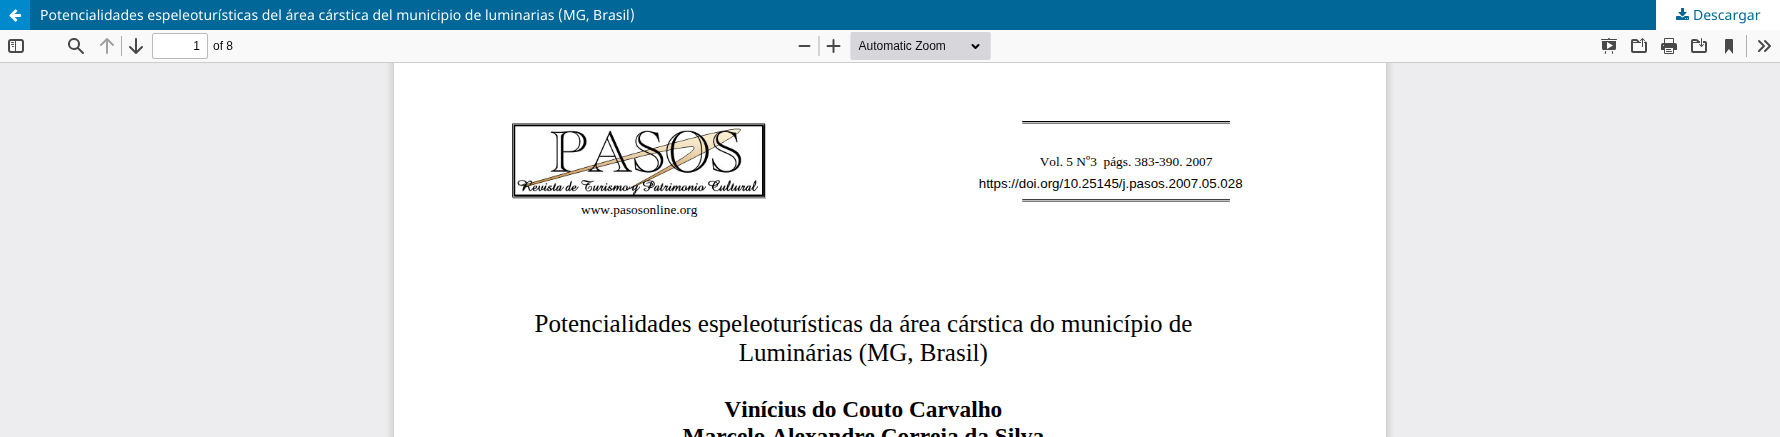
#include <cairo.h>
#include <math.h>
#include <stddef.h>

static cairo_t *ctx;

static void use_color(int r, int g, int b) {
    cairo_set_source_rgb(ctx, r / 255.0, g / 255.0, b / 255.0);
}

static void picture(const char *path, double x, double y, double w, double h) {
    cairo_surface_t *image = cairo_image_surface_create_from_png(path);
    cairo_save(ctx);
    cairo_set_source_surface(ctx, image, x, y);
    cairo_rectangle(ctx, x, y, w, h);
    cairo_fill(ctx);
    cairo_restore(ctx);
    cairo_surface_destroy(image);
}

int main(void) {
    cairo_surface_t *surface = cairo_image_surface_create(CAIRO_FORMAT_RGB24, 1780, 437);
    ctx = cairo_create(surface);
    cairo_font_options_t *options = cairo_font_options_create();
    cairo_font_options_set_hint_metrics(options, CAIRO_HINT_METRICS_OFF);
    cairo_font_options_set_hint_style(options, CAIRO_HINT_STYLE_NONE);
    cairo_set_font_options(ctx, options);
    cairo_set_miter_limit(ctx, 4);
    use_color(255, 255, 255);
    cairo_paint(ctx);
    use_color(0, 103, 152);
    cairo_rectangle(ctx, 30, 0, 1626, 30);
    cairo_fill(ctx);
    use_color(0, 138, 203);
    cairo_rectangle(ctx, 0, 0, 30, 30);
    cairo_fill(ctx);
    picture("img1.png", 9, 9, 12, 13);
    cairo_select_font_face(ctx, "Noto Sans", CAIRO_FONT_SLANT_NORMAL, CAIRO_FONT_WEIGHT_NORMAL);
    cairo_set_font_size(ctx, 14);
    use_color(255, 255, 255);
    cairo_move_to(ctx, 40, 20);
    cairo_show_text(ctx, "Potencialidades espeleoturísticas del área cárstica del municipio de luminarias (MG, Brasil)");
    picture("img2.png", 1676, 8, 13, 12);
    use_color(0, 103, 152);
    cairo_move_to(ctx, 1693, 20);
    cairo_show_text(ctx, "Descargar");
    picture("img3.png", 0, 30, 1780, 407);
    cairo_surface_write_to_png(surface, "result.png");
    cairo_font_options_destroy(options);
    cairo_destroy(ctx);
    cairo_surface_destroy(surface);
    return 0;
}
